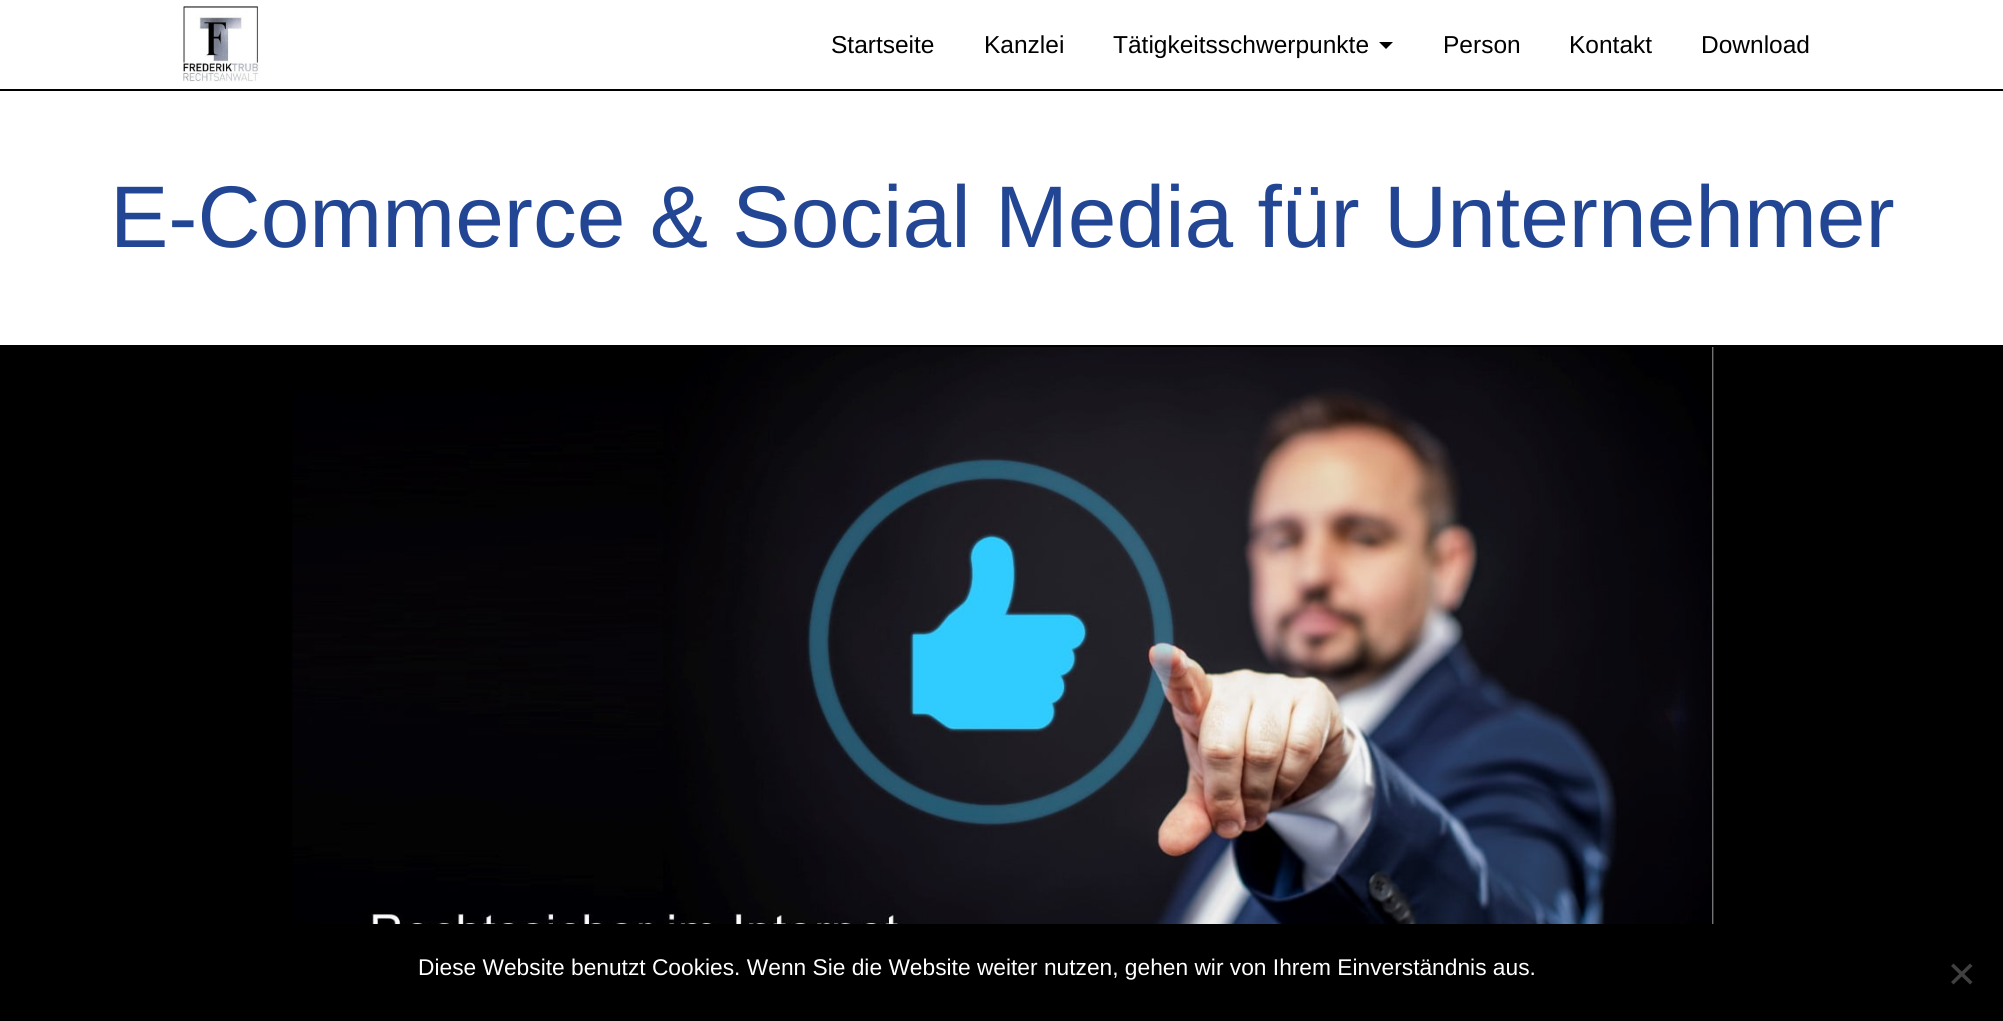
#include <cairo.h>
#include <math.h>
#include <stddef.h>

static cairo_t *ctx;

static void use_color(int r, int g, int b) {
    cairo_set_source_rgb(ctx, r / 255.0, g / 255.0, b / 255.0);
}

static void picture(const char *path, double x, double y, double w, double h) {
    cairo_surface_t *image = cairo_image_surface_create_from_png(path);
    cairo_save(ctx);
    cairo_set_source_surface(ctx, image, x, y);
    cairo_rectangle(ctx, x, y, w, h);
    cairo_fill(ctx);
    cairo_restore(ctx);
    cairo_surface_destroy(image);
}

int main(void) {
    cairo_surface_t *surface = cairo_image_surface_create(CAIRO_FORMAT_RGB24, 2003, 1021);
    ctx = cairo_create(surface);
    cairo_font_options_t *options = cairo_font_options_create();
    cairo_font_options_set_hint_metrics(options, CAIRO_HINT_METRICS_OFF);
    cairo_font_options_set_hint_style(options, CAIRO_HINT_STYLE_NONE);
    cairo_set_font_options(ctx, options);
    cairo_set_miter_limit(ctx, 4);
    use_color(255, 255, 255);
    cairo_paint(ctx);
    picture("img1.png", 183, 6, 78, 76);
    cairo_select_font_face(ctx, "Liberation Sans", CAIRO_FONT_SLANT_NORMAL, CAIRO_FONT_WEIGHT_NORMAL);
    cairo_set_font_size(ctx, 24.5);
    use_color(0, 0, 0);
    cairo_move_to(ctx, 831, 53);
    cairo_show_text(ctx, "Startseite");
    cairo_move_to(ctx, 984, 53);
    cairo_show_text(ctx, "Kanzlei");
    cairo_move_to(ctx, 1113, 53);
    cairo_show_text(ctx, "Tätigkeitsschwerpunkte");
    cairo_new_path(ctx);
    cairo_move_to(ctx, 1379, 42);
    cairo_line_to(ctx, 1393, 42);
    cairo_line_to(ctx, 1386, 49);
    cairo_close_path(ctx);
    cairo_fill(ctx);
    cairo_move_to(ctx, 1443, 53);
    cairo_show_text(ctx, "Person");
    cairo_move_to(ctx, 1569, 53);
    cairo_show_text(ctx, "Kontakt");
    cairo_move_to(ctx, 1701, 53);
    cairo_show_text(ctx, "Download");
    cairo_rectangle(ctx, 0, 89, 2003, 2);
    cairo_fill(ctx);
    cairo_set_font_size(ctx, 87.5);
    use_color(34, 70, 148);
    cairo_move_to(ctx, 110, 247);
    cairo_show_text(ctx, "E-Commerce & Social Media für Unternehmer");
    use_color(0, 0, 0);
    cairo_rectangle(ctx, 0, 345, 2003, 676);
    cairo_fill(ctx);
    picture("img2.png", 292, 347, 1422, 577);
    cairo_set_font_size(ctx, 22.75);
    use_color(255, 255, 255);
    cairo_move_to(ctx, 418, 975);
    cairo_show_text(ctx, "Diese Website benutzt Cookies. Wenn Sie die Website weiter nutzen, gehen wir von Ihrem Einverständnis aus.");
    use_color(64, 64, 64);
    cairo_new_path(ctx);
    cairo_move_to(ctx, 1970, 963.5);
    cairo_line_to(ctx, 1972.5, 966);
    cairo_line_to(ctx, 1953.5, 984.5);
    cairo_line_to(ctx, 1951, 982);
    cairo_close_path(ctx);
    cairo_fill(ctx);
    cairo_new_path(ctx);
    cairo_move_to(ctx, 1951, 966);
    cairo_line_to(ctx, 1953.5, 963.5);
    cairo_line_to(ctx, 1972.5, 982);
    cairo_line_to(ctx, 1970, 984.5);
    cairo_close_path(ctx);
    cairo_fill(ctx);
    cairo_surface_write_to_png(surface, "result.png");
    cairo_font_options_destroy(options);
    cairo_destroy(ctx);
    cairo_surface_destroy(surface);
    return 0;
}
